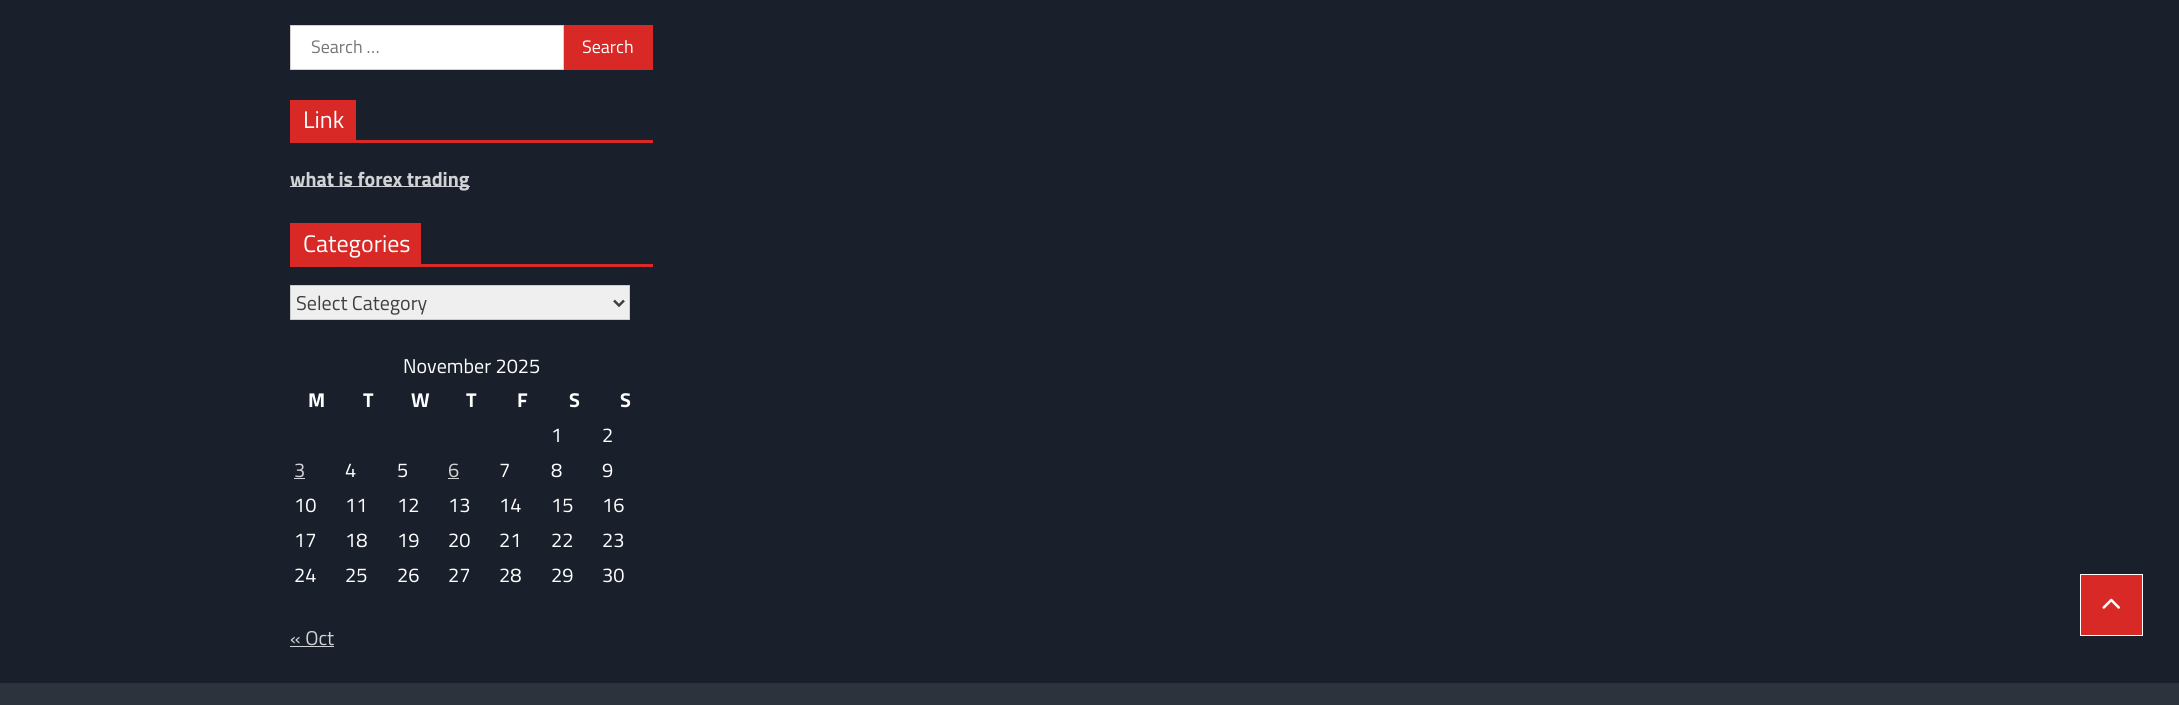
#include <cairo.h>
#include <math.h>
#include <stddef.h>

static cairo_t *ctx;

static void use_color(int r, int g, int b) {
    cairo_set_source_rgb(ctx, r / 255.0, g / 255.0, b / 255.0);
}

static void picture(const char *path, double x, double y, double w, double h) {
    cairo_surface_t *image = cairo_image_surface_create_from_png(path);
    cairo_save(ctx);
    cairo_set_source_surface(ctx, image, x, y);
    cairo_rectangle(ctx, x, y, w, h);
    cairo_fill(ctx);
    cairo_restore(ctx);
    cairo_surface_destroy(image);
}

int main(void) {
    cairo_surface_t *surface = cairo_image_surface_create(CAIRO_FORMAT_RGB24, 2179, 705);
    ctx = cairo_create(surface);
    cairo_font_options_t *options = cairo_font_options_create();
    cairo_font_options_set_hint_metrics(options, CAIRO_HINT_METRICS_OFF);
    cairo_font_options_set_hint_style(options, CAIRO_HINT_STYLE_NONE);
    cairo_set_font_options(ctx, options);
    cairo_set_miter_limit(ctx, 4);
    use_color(26, 32, 43);
    cairo_paint(ctx);
    use_color(255, 255, 255);
    cairo_rectangle(ctx, 290.5, 25.5, 273, 44);
    cairo_fill_preserve(ctx);
    use_color(211, 206, 210);
    cairo_set_line_width(ctx, 1);
    cairo_stroke(ctx);
    cairo_select_font_face(ctx, "Titillium Web", CAIRO_FONT_SLANT_NORMAL, CAIRO_FONT_WEIGHT_NORMAL);
    cairo_set_font_size(ctx, 18);
    use_color(117, 117, 117);
    cairo_move_to(ctx, 311, 53);
    cairo_show_text(ctx, "Search …");
    use_color(216, 41, 38);
    cairo_rectangle(ctx, 564, 25, 89, 45);
    cairo_fill(ctx);
    use_color(255, 255, 255);
    cairo_move_to(ctx, 582, 53);
    cairo_show_text(ctx, "Search");
    use_color(216, 41, 38);
    cairo_rectangle(ctx, 290, 140, 363, 3);
    cairo_fill(ctx);
    cairo_rectangle(ctx, 290, 100, 66, 40);
    cairo_fill(ctx);
    cairo_set_font_size(ctx, 24);
    use_color(255, 255, 255);
    cairo_move_to(ctx, 303, 128);
    cairo_show_text(ctx, "Link");
    use_color(209, 210, 213);
    cairo_rectangle(ctx, 290, 186, 180, 1);
    cairo_fill(ctx);
    cairo_select_font_face(ctx, "Titillium Web", CAIRO_FONT_SLANT_NORMAL, CAIRO_FONT_WEIGHT_BOLD);
    cairo_set_font_size(ctx, 20);
    cairo_move_to(ctx, 290, 186);
    cairo_show_text(ctx, "what is forex trading");
    use_color(216, 41, 38);
    cairo_rectangle(ctx, 290, 264, 363, 3);
    cairo_fill(ctx);
    cairo_rectangle(ctx, 290, 223, 131, 41);
    cairo_fill(ctx);
    cairo_select_font_face(ctx, "Titillium Web", CAIRO_FONT_SLANT_NORMAL, CAIRO_FONT_WEIGHT_NORMAL);
    cairo_set_font_size(ctx, 24);
    use_color(255, 255, 255);
    cairo_move_to(ctx, 303, 252);
    cairo_show_text(ctx, "Categories");
    use_color(239, 239, 239);
    cairo_rectangle(ctx, 290.5, 285.5, 339, 34);
    cairo_fill_preserve(ctx);
    use_color(204, 204, 204);
    cairo_stroke(ctx);
    cairo_new_path(ctx);
    cairo_move_to(ctx, 614, 300.5);
    cairo_line_to(ctx, 619, 305.5);
    cairo_line_to(ctx, 624, 300.5);
    use_color(64, 64, 64);
    cairo_set_line_width(ctx, 2.5);
    cairo_stroke(ctx);
    cairo_set_font_size(ctx, 20);
    cairo_move_to(ctx, 296, 310);
    cairo_show_text(ctx, "Select Category");
    use_color(255, 255, 255);
    cairo_move_to(ctx, 403, 373);
    cairo_show_text(ctx, "November 2025");
    cairo_select_font_face(ctx, "Titillium Web", CAIRO_FONT_SLANT_NORMAL, CAIRO_FONT_WEIGHT_BOLD);
    cairo_move_to(ctx, 308, 407);
    cairo_show_text(ctx, "M");
    cairo_move_to(ctx, 363, 407);
    cairo_show_text(ctx, "T");
    cairo_move_to(ctx, 411, 407);
    cairo_show_text(ctx, "W");
    cairo_move_to(ctx, 466, 407);
    cairo_show_text(ctx, "T");
    cairo_move_to(ctx, 517, 407);
    cairo_show_text(ctx, "F");
    cairo_move_to(ctx, 569, 407);
    cairo_show_text(ctx, "S");
    cairo_move_to(ctx, 620, 407);
    cairo_show_text(ctx, "S");
    cairo_select_font_face(ctx, "Titillium Web", CAIRO_FONT_SLANT_NORMAL, CAIRO_FONT_WEIGHT_NORMAL);
    cairo_move_to(ctx, 551, 442);
    cairo_show_text(ctx, "1");
    cairo_move_to(ctx, 602, 442);
    cairo_show_text(ctx, "2");
    use_color(209, 210, 213);
    cairo_move_to(ctx, 294, 477);
    cairo_show_text(ctx, "3");
    cairo_rectangle(ctx, 294, 478, 11, 1);
    cairo_fill(ctx);
    use_color(255, 255, 255);
    cairo_move_to(ctx, 345, 477);
    cairo_show_text(ctx, "4");
    cairo_move_to(ctx, 397, 477);
    cairo_show_text(ctx, "5");
    use_color(209, 210, 213);
    cairo_move_to(ctx, 448, 477);
    cairo_show_text(ctx, "6");
    cairo_rectangle(ctx, 448, 478, 11, 1);
    cairo_fill(ctx);
    use_color(255, 255, 255);
    cairo_move_to(ctx, 499, 477);
    cairo_show_text(ctx, "7");
    cairo_move_to(ctx, 551, 477);
    cairo_show_text(ctx, "8");
    cairo_move_to(ctx, 602, 477);
    cairo_show_text(ctx, "9");
    cairo_move_to(ctx, 294, 512);
    cairo_show_text(ctx, "10");
    cairo_move_to(ctx, 345, 512);
    cairo_show_text(ctx, "11");
    cairo_move_to(ctx, 397, 512);
    cairo_show_text(ctx, "12");
    cairo_move_to(ctx, 448, 512);
    cairo_show_text(ctx, "13");
    cairo_move_to(ctx, 499, 512);
    cairo_show_text(ctx, "14");
    cairo_move_to(ctx, 551, 512);
    cairo_show_text(ctx, "15");
    cairo_move_to(ctx, 602, 512);
    cairo_show_text(ctx, "16");
    cairo_move_to(ctx, 294, 547);
    cairo_show_text(ctx, "17");
    cairo_move_to(ctx, 345, 547);
    cairo_show_text(ctx, "18");
    cairo_move_to(ctx, 397, 547);
    cairo_show_text(ctx, "19");
    cairo_move_to(ctx, 448, 547);
    cairo_show_text(ctx, "20");
    cairo_move_to(ctx, 499, 547);
    cairo_show_text(ctx, "21");
    cairo_move_to(ctx, 551, 547);
    cairo_show_text(ctx, "22");
    cairo_move_to(ctx, 602, 547);
    cairo_show_text(ctx, "23");
    cairo_move_to(ctx, 294, 582);
    cairo_show_text(ctx, "24");
    cairo_move_to(ctx, 345, 582);
    cairo_show_text(ctx, "25");
    cairo_move_to(ctx, 397, 582);
    cairo_show_text(ctx, "26");
    cairo_move_to(ctx, 448, 582);
    cairo_show_text(ctx, "27");
    cairo_move_to(ctx, 499, 582);
    cairo_show_text(ctx, "28");
    cairo_move_to(ctx, 551, 582);
    cairo_show_text(ctx, "29");
    cairo_move_to(ctx, 602, 582);
    cairo_show_text(ctx, "30");
    use_color(209, 210, 213);
    cairo_move_to(ctx, 290, 645);
    cairo_show_text(ctx, "« Oct");
    cairo_rectangle(ctx, 290, 646, 44, 1);
    cairo_fill(ctx);
    use_color(45, 51, 60);
    cairo_rectangle(ctx, 0, 683, 2179, 22);
    cairo_fill(ctx);
    use_color(216, 41, 38);
    cairo_rectangle(ctx, 2080.5, 574.5, 62, 61);
    cairo_fill_preserve(ctx);
    use_color(255, 255, 255);
    cairo_set_line_width(ctx, 1);
    cairo_stroke(ctx);
    picture("img1.png", 2102, 598, 18, 11);
    cairo_surface_write_to_png(surface, "result.png");
    cairo_font_options_destroy(options);
    cairo_destroy(ctx);
    cairo_surface_destroy(surface);
    return 0;
}
